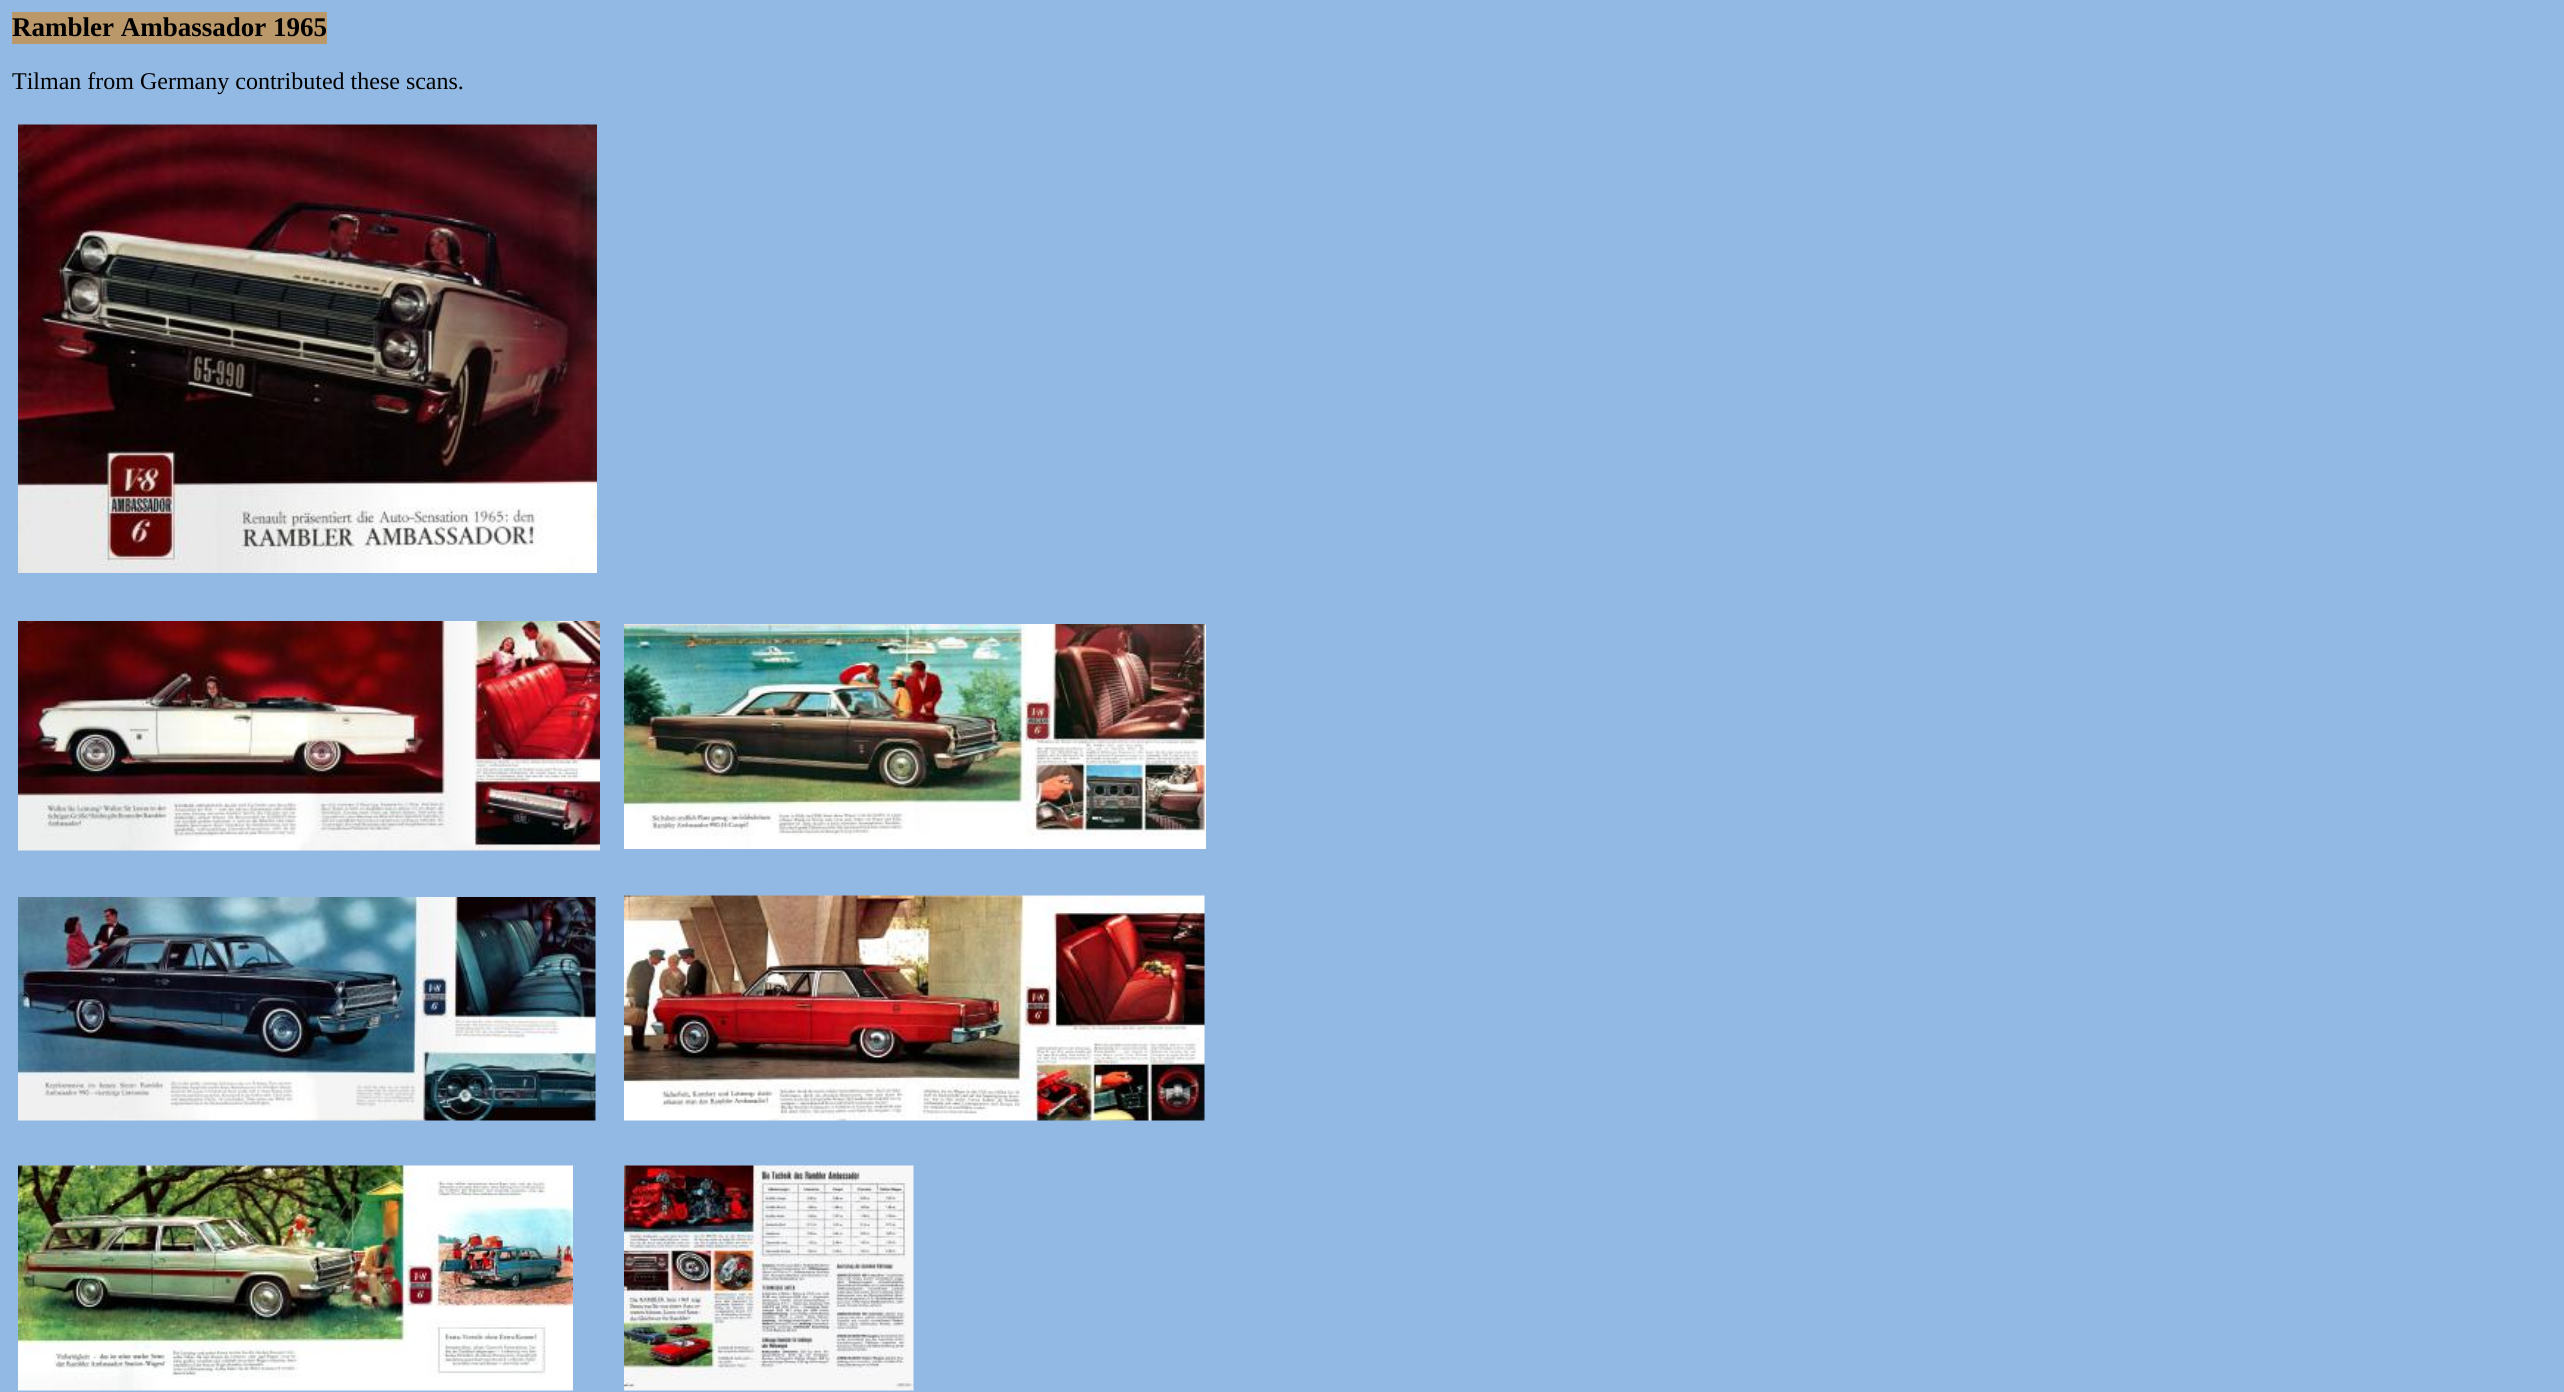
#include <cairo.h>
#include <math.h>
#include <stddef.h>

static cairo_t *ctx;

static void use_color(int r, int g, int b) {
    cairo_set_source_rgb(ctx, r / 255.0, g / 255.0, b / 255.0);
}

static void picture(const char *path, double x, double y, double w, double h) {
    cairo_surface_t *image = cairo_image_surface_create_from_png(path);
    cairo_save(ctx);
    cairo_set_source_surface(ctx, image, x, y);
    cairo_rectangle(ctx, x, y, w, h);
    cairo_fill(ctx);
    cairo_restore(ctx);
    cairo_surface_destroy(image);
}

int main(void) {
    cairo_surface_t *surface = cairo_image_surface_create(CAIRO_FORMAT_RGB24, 2564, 1392);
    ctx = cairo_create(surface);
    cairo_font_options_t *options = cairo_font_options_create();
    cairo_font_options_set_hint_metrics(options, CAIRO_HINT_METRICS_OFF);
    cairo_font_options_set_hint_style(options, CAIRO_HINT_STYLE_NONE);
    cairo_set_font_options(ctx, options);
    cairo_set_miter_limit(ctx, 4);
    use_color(146, 185, 228);
    cairo_paint(ctx);
    use_color(186, 152, 105);
    cairo_rectangle(ctx, 12, 12, 315, 32);
    cairo_fill(ctx);
    cairo_select_font_face(ctx, "Liberation Serif", CAIRO_FONT_SLANT_NORMAL, CAIRO_FONT_WEIGHT_BOLD);
    cairo_set_font_size(ctx, 27);
    use_color(0, 0, 0);
    cairo_move_to(ctx, 12, 36);
    cairo_show_text(ctx, "Rambler Ambassador 1965");
    cairo_select_font_face(ctx, "Liberation Serif", CAIRO_FONT_SLANT_NORMAL, CAIRO_FONT_WEIGHT_NORMAL);
    cairo_set_font_size(ctx, 24);
    cairo_move_to(ctx, 12, 89);
    cairo_show_text(ctx, "Tilman from Germany contributed these scans.");
    picture("img1.png", 18, 124, 579, 449);
    picture("img2.png", 18, 621, 582, 230);
    picture("img3.png", 624, 624, 582, 225);
    picture("img4.png", 18, 897, 578, 224);
    picture("img5.png", 624, 895, 581, 226);
    picture("img6.png", 18, 1165, 555, 226);
    picture("img7.png", 624, 1165, 290, 226);
    cairo_surface_write_to_png(surface, "result.png");
    cairo_font_options_destroy(options);
    cairo_destroy(ctx);
    cairo_surface_destroy(surface);
    return 0;
}
